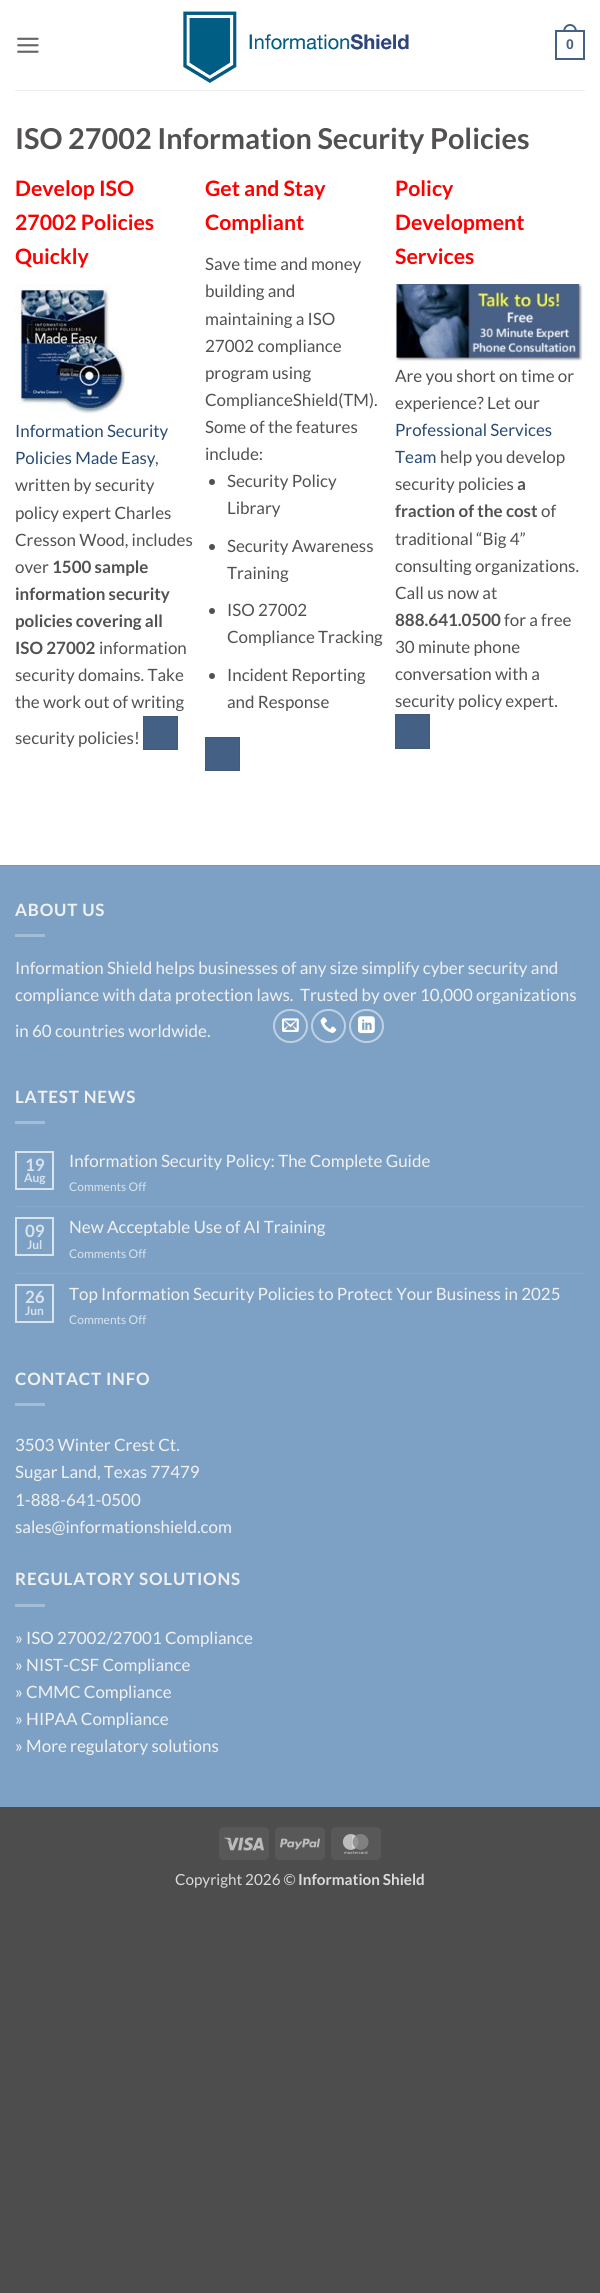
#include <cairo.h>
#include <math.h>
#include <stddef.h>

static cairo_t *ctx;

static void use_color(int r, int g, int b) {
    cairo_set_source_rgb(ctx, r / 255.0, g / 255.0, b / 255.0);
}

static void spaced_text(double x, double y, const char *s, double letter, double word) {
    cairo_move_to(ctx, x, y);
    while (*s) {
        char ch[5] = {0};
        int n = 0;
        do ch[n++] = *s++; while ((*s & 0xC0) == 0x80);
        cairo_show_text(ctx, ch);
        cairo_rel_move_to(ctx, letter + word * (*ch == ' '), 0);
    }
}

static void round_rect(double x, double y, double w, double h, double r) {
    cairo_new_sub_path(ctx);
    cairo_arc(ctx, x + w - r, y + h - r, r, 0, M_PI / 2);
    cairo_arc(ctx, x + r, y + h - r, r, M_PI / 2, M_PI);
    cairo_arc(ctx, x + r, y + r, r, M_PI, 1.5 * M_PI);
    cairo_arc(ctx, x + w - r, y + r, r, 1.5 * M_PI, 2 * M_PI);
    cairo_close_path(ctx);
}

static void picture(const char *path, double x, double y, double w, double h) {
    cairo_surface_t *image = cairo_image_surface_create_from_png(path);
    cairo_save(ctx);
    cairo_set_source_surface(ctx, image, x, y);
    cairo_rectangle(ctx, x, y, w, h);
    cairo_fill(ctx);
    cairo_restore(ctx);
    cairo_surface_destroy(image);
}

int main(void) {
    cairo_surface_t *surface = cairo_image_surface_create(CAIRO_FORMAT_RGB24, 600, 2293);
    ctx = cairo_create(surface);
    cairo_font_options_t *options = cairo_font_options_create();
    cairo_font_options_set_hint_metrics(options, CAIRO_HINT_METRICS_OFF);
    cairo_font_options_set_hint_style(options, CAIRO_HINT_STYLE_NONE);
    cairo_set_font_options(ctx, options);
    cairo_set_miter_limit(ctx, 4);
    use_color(77, 77, 77);
    cairo_paint(ctx);
    use_color(255, 255, 255);
    cairo_rectangle(ctx, 0, 0, 600, 865);
    cairo_fill(ctx);
    picture("img1.png", 17, 37, 22, 16);
    picture("img2.png", 183, 11, 226, 72);
    cairo_rectangle(ctx, 556, 31, 28, 28);
    use_color(68, 96, 132);
    cairo_stroke(ctx);
    cairo_set_fill_rule(ctx, CAIRO_FILL_RULE_EVEN_ODD);
    cairo_new_path(ctx);
    cairo_move_to(ctx, 570, 24);
    cairo_curve_to(ctx, 574.5, 24, 577, 28, 577, 32);
    cairo_line_to(ctx, 563, 32);
    cairo_curve_to(ctx, 563, 28, 565.5, 24, 570, 24);
    cairo_close_path(ctx);
    cairo_move_to(ctx, 570, 26);
    cairo_curve_to(ctx, 573.5, 26, 575, 29, 575, 32);
    cairo_line_to(ctx, 565, 32);
    cairo_curve_to(ctx, 565, 29, 566.5, 26, 570, 26);
    cairo_close_path(ctx);
    cairo_fill(ctx);
    cairo_select_font_face(ctx, "Liberation Sans", CAIRO_FONT_SLANT_NORMAL, CAIRO_FONT_WEIGHT_BOLD);
    cairo_set_font_size(ctx, 14);
    cairo_move_to(ctx, 566, 49);
    cairo_show_text(ctx, "0");
    use_color(238, 238, 238);
    cairo_rectangle(ctx, 15, 90, 570, 1);
    cairo_fill(ctx);
    cairo_select_font_face(ctx, "Lato", CAIRO_FONT_SLANT_NORMAL, CAIRO_FONT_WEIGHT_BOLD);
    cairo_set_font_size(ctx, 28.8);
    use_color(82, 80, 80);
    cairo_move_to(ctx, 15, 149);
    cairo_show_text(ctx, "ISO 27002 Information Security Policies");
    cairo_set_font_size(ctx, 21.25);
    use_color(255, 0, 0);
    cairo_move_to(ctx, 15, 196);
    cairo_show_text(ctx, "Develop ISO");
    cairo_move_to(ctx, 15, 230);
    cairo_show_text(ctx, "27002 Policies");
    cairo_move_to(ctx, 15, 264);
    cairo_show_text(ctx, "Quickly");
    picture("img3.png", 15, 284, 112, 130);
    cairo_select_font_face(ctx, "Lato", CAIRO_FONT_SLANT_NORMAL, CAIRO_FONT_WEIGHT_NORMAL);
    cairo_set_font_size(ctx, 16.95);
    use_color(40, 75, 117);
    cairo_move_to(ctx, 15, 437);
    cairo_show_text(ctx, "Information Security");
    cairo_move_to(ctx, 15, 464);
    cairo_show_text(ctx, "Policies Made Easy");
    use_color(82, 80, 80);
    cairo_move_to(ctx, 155, 464);
    cairo_show_text(ctx, ",");
    cairo_move_to(ctx, 15, 491);
    cairo_show_text(ctx, "written by security");
    cairo_move_to(ctx, 15, 519);
    cairo_show_text(ctx, "policy expert Charles");
    cairo_move_to(ctx, 15, 546);
    cairo_show_text(ctx, "Cresson Wood, includes");
    cairo_move_to(ctx, 15, 573);
    cairo_show_text(ctx, "over");
    cairo_select_font_face(ctx, "Lato", CAIRO_FONT_SLANT_NORMAL, CAIRO_FONT_WEIGHT_BOLD);
    cairo_move_to(ctx, 52, 573);
    cairo_show_text(ctx, "1500 sample");
    cairo_move_to(ctx, 15, 600);
    cairo_show_text(ctx, "information security");
    cairo_move_to(ctx, 15, 627);
    cairo_show_text(ctx, "policies covering all");
    cairo_move_to(ctx, 15, 654);
    cairo_show_text(ctx, "ISO 27002");
    cairo_select_font_face(ctx, "Lato", CAIRO_FONT_SLANT_NORMAL, CAIRO_FONT_WEIGHT_NORMAL);
    cairo_move_to(ctx, 99, 654);
    cairo_show_text(ctx, "information");
    cairo_move_to(ctx, 15, 681);
    cairo_show_text(ctx, "security domains. Take");
    cairo_move_to(ctx, 15, 708);
    cairo_show_text(ctx, "the work out of writing");
    cairo_move_to(ctx, 15, 744);
    cairo_show_text(ctx, "security policies!");
    use_color(68, 96, 132);
    cairo_rectangle(ctx, 143.5, 716.5, 34, 33);
    cairo_fill_preserve(ctx);
    use_color(65, 91, 125);
    cairo_set_line_width(ctx, 1);
    cairo_stroke(ctx);
    cairo_select_font_face(ctx, "Lato", CAIRO_FONT_SLANT_NORMAL, CAIRO_FONT_WEIGHT_BOLD);
    cairo_set_font_size(ctx, 21.25);
    use_color(255, 0, 0);
    cairo_move_to(ctx, 205, 196);
    cairo_show_text(ctx, "Get and Stay");
    cairo_move_to(ctx, 205, 230);
    cairo_show_text(ctx, "Compliant");
    cairo_select_font_face(ctx, "Lato", CAIRO_FONT_SLANT_NORMAL, CAIRO_FONT_WEIGHT_NORMAL);
    cairo_set_font_size(ctx, 16.95);
    use_color(82, 80, 80);
    cairo_move_to(ctx, 205, 270);
    cairo_show_text(ctx, "Save time and money");
    cairo_move_to(ctx, 205, 297);
    cairo_show_text(ctx, "building and");
    cairo_move_to(ctx, 205, 325);
    cairo_show_text(ctx, "maintaining a ISO");
    cairo_move_to(ctx, 205, 352);
    cairo_show_text(ctx, "27002 compliance");
    cairo_move_to(ctx, 205, 379);
    cairo_show_text(ctx, "program using");
    cairo_move_to(ctx, 205, 406);
    cairo_show_text(ctx, "ComplianceShield(TM).");
    cairo_move_to(ctx, 205, 433);
    cairo_show_text(ctx, "Some of the features");
    cairo_move_to(ctx, 205, 460);
    cairo_show_text(ctx, "include:");
    cairo_new_path(ctx);
    cairo_arc(ctx, 212, 482, 3, 0, 2 * M_PI);
    cairo_fill(ctx);
    cairo_move_to(ctx, 227, 487);
    cairo_show_text(ctx, "Security Policy");
    cairo_move_to(ctx, 227, 514);
    cairo_show_text(ctx, "Library");
    cairo_new_path(ctx);
    cairo_arc(ctx, 212, 547, 3, 0, 2 * M_PI);
    cairo_fill(ctx);
    cairo_move_to(ctx, 227, 552);
    cairo_show_text(ctx, "Security Awareness");
    cairo_move_to(ctx, 227, 579);
    cairo_show_text(ctx, "Training");
    cairo_new_path(ctx);
    cairo_arc(ctx, 212, 611, 3, 0, 2 * M_PI);
    cairo_fill(ctx);
    cairo_move_to(ctx, 227, 616);
    cairo_show_text(ctx, "ISO 27002");
    cairo_move_to(ctx, 227, 643);
    cairo_show_text(ctx, "Compliance Tracking");
    cairo_new_path(ctx);
    cairo_arc(ctx, 212, 676, 3, 0, 2 * M_PI);
    cairo_fill(ctx);
    cairo_move_to(ctx, 227, 681);
    cairo_show_text(ctx, "Incident Reporting");
    cairo_move_to(ctx, 227, 708);
    cairo_show_text(ctx, "and Response");
    use_color(68, 96, 132);
    cairo_rectangle(ctx, 205.5, 737.5, 34, 33);
    cairo_fill_preserve(ctx);
    use_color(65, 91, 125);
    cairo_stroke(ctx);
    cairo_select_font_face(ctx, "Lato", CAIRO_FONT_SLANT_NORMAL, CAIRO_FONT_WEIGHT_BOLD);
    cairo_set_font_size(ctx, 21.25);
    use_color(255, 0, 0);
    cairo_move_to(ctx, 395, 196);
    cairo_show_text(ctx, "Policy");
    cairo_move_to(ctx, 395, 230);
    cairo_show_text(ctx, "Development");
    cairo_move_to(ctx, 395, 264);
    cairo_show_text(ctx, "Services");
    picture("img4.png", 395, 284, 188, 78);
    cairo_select_font_face(ctx, "Lato", CAIRO_FONT_SLANT_NORMAL, CAIRO_FONT_WEIGHT_NORMAL);
    cairo_set_font_size(ctx, 16.95);
    use_color(82, 80, 80);
    cairo_move_to(ctx, 395, 382);
    cairo_show_text(ctx, "Are you short on time or");
    cairo_move_to(ctx, 395, 409);
    cairo_show_text(ctx, "experience? Let our");
    use_color(40, 75, 117);
    cairo_move_to(ctx, 395, 436);
    cairo_show_text(ctx, "Professional Services");
    cairo_move_to(ctx, 395, 463);
    cairo_show_text(ctx, "Team");
    use_color(82, 80, 80);
    cairo_move_to(ctx, 440, 463);
    cairo_show_text(ctx, "help you develop");
    cairo_move_to(ctx, 395, 490);
    cairo_show_text(ctx, "security policies");
    cairo_select_font_face(ctx, "Lato", CAIRO_FONT_SLANT_NORMAL, CAIRO_FONT_WEIGHT_BOLD);
    cairo_move_to(ctx, 517, 490);
    cairo_show_text(ctx, "a");
    cairo_move_to(ctx, 395, 517);
    cairo_show_text(ctx, "fraction of the cost");
    cairo_select_font_face(ctx, "Lato", CAIRO_FONT_SLANT_NORMAL, CAIRO_FONT_WEIGHT_NORMAL);
    cairo_move_to(ctx, 541, 517);
    cairo_show_text(ctx, "of");
    cairo_move_to(ctx, 395, 545);
    cairo_show_text(ctx, "traditional “Big 4”");
    cairo_move_to(ctx, 395, 572);
    cairo_show_text(ctx, "consulting organizations.");
    cairo_move_to(ctx, 395, 599);
    cairo_show_text(ctx, "Call us now at");
    cairo_select_font_face(ctx, "Lato", CAIRO_FONT_SLANT_NORMAL, CAIRO_FONT_WEIGHT_BOLD);
    cairo_move_to(ctx, 395, 626);
    cairo_show_text(ctx, "888.641.0500");
    cairo_select_font_face(ctx, "Lato", CAIRO_FONT_SLANT_NORMAL, CAIRO_FONT_WEIGHT_NORMAL);
    cairo_move_to(ctx, 504, 626);
    cairo_show_text(ctx, "for a free");
    cairo_move_to(ctx, 395, 653);
    cairo_show_text(ctx, "30 minute phone");
    cairo_move_to(ctx, 395, 680);
    cairo_show_text(ctx, "conversation with a");
    cairo_move_to(ctx, 395, 707);
    cairo_show_text(ctx, "security policy expert.");
    use_color(68, 96, 132);
    cairo_rectangle(ctx, 395.5, 714.5, 34, 34);
    cairo_fill_preserve(ctx);
    use_color(65, 91, 125);
    cairo_stroke(ctx);
    use_color(125, 161, 196);
    cairo_rectangle(ctx, 0, 866, 600, 941);
    cairo_fill(ctx);
    use_color(119, 153, 186);
    cairo_rectangle(ctx, 0, 865, 600, 1);
    cairo_fill(ctx);
    cairo_select_font_face(ctx, "Lato", CAIRO_FONT_SLANT_NORMAL, CAIRO_FONT_WEIGHT_BOLD);
    use_color(241, 241, 241);
    spaced_text(15, 916, "ABOUT US", 0.8, 0);
    use_color(164, 189, 214);
    cairo_rectangle(ctx, 15, 934, 30, 3);
    cairo_fill(ctx);
    cairo_select_font_face(ctx, "Lato", CAIRO_FONT_SLANT_NORMAL, CAIRO_FONT_WEIGHT_NORMAL);
    use_color(241, 241, 241);
    cairo_move_to(ctx, 15, 974);
    cairo_show_text(ctx, "Information Shield helps businesses of any size simplify cyber security and");
    cairo_move_to(ctx, 15, 1001);
    cairo_show_text(ctx, "compliance with data protection laws.  Trusted by over 10,000 organizations");
    cairo_move_to(ctx, 15, 1037);
    cairo_show_text(ctx, "in 60 countries worldwide.");
    round_rect(274, 1010, 33, 32, 16);
    use_color(190, 208, 226);
    cairo_set_line_width(ctx, 2);
    cairo_stroke(ctx);
    picture("img5.png", 282, 1018, 17, 14);
    round_rect(312, 1010, 33, 32, 16);
    cairo_stroke(ctx);
    picture("img6.png", 320, 1017, 17, 16);
    round_rect(350, 1010, 33, 32, 16);
    cairo_stroke(ctx);
    picture("img7.png", 358, 1016, 17, 18);
    cairo_select_font_face(ctx, "Lato", CAIRO_FONT_SLANT_NORMAL, CAIRO_FONT_WEIGHT_BOLD);
    use_color(241, 241, 241);
    spaced_text(15, 1103, "LATEST NEWS", 0.8, 0);
    use_color(164, 189, 214);
    cairo_rectangle(ctx, 15, 1121, 30, 3);
    cairo_fill(ctx);
    cairo_rectangle(ctx, 16, 1152, 37, 37);
    use_color(216, 227, 237);
    cairo_stroke(ctx);
    cairo_move_to(ctx, 25, 1171);
    cairo_show_text(ctx, "19");
    cairo_set_font_size(ctx, 12);
    cairo_move_to(ctx, 24, 1182);
    cairo_show_text(ctx, "Aug");
    cairo_select_font_face(ctx, "Lato", CAIRO_FONT_SLANT_NORMAL, CAIRO_FONT_WEIGHT_NORMAL);
    cairo_set_font_size(ctx, 16.95);
    use_color(241, 241, 241);
    cairo_move_to(ctx, 69, 1167);
    cairo_show_text(ctx, "Information Security Policy: The Complete Guide");
    cairo_set_font_size(ctx, 12);
    use_color(216, 227, 237);
    cairo_move_to(ctx, 69, 1191);
    cairo_show_text(ctx, "Comments Off");
    use_color(135, 169, 201);
    cairo_rectangle(ctx, 15, 1206, 570, 1);
    cairo_fill(ctx);
    cairo_rectangle(ctx, 16, 1218, 37, 37);
    use_color(216, 227, 237);
    cairo_stroke(ctx);
    cairo_select_font_face(ctx, "Lato", CAIRO_FONT_SLANT_NORMAL, CAIRO_FONT_WEIGHT_BOLD);
    cairo_set_font_size(ctx, 16.95);
    cairo_move_to(ctx, 25, 1237);
    cairo_show_text(ctx, "09");
    cairo_set_font_size(ctx, 12);
    cairo_move_to(ctx, 27, 1249);
    cairo_show_text(ctx, "Jul");
    cairo_select_font_face(ctx, "Lato", CAIRO_FONT_SLANT_NORMAL, CAIRO_FONT_WEIGHT_NORMAL);
    cairo_set_font_size(ctx, 16.95);
    use_color(241, 241, 241);
    cairo_move_to(ctx, 69, 1233);
    cairo_show_text(ctx, "New Acceptable Use of AI Training");
    cairo_set_font_size(ctx, 12);
    use_color(216, 227, 237);
    cairo_move_to(ctx, 69, 1258);
    cairo_show_text(ctx, "Comments Off");
    use_color(135, 169, 201);
    cairo_rectangle(ctx, 15, 1273, 570, 1);
    cairo_fill(ctx);
    cairo_rectangle(ctx, 16, 1285, 37, 37);
    use_color(216, 227, 237);
    cairo_stroke(ctx);
    cairo_select_font_face(ctx, "Lato", CAIRO_FONT_SLANT_NORMAL, CAIRO_FONT_WEIGHT_BOLD);
    cairo_set_font_size(ctx, 16.95);
    cairo_move_to(ctx, 25, 1303);
    cairo_show_text(ctx, "26");
    cairo_set_font_size(ctx, 12);
    cairo_move_to(ctx, 25, 1315);
    cairo_show_text(ctx, "Jun");
    cairo_select_font_face(ctx, "Lato", CAIRO_FONT_SLANT_NORMAL, CAIRO_FONT_WEIGHT_NORMAL);
    cairo_set_font_size(ctx, 16.95);
    use_color(241, 241, 241);
    cairo_move_to(ctx, 69, 1300);
    cairo_show_text(ctx, "Top Information Security Policies to Protect Your Business in 2025");
    cairo_set_font_size(ctx, 12);
    use_color(216, 227, 237);
    cairo_move_to(ctx, 69, 1324);
    cairo_show_text(ctx, "Comments Off");
    cairo_select_font_face(ctx, "Lato", CAIRO_FONT_SLANT_NORMAL, CAIRO_FONT_WEIGHT_BOLD);
    cairo_set_font_size(ctx, 16.95);
    use_color(241, 241, 241);
    spaced_text(15, 1385, "CONTACT INFO", 0.8, 0);
    use_color(164, 189, 214);
    cairo_rectangle(ctx, 15, 1403, 30, 3);
    cairo_fill(ctx);
    cairo_select_font_face(ctx, "Lato", CAIRO_FONT_SLANT_NORMAL, CAIRO_FONT_WEIGHT_NORMAL);
    use_color(241, 241, 241);
    cairo_move_to(ctx, 15, 1451);
    cairo_show_text(ctx, "3503 Winter Crest Ct.");
    cairo_move_to(ctx, 15, 1478);
    cairo_show_text(ctx, "Sugar Land, Texas 77479");
    cairo_move_to(ctx, 15, 1506);
    cairo_show_text(ctx, "1-888-641-0500");
    cairo_move_to(ctx, 15, 1533);
    cairo_show_text(ctx, "sales@informationshield.com");
    cairo_select_font_face(ctx, "Lato", CAIRO_FONT_SLANT_NORMAL, CAIRO_FONT_WEIGHT_BOLD);
    spaced_text(15, 1585, "REGULATORY SOLUTIONS", 0.8, 0);
    use_color(164, 189, 214);
    cairo_rectangle(ctx, 15, 1604, 30, 3);
    cairo_fill(ctx);
    cairo_select_font_face(ctx, "Lato", CAIRO_FONT_SLANT_NORMAL, CAIRO_FONT_WEIGHT_NORMAL);
    use_color(241, 241, 241);
    cairo_move_to(ctx, 15, 1644);
    cairo_show_text(ctx, "» ISO 27002/27001 Compliance");
    cairo_move_to(ctx, 15, 1671);
    cairo_show_text(ctx, "» NIST-CSF Compliance");
    cairo_move_to(ctx, 15, 1698);
    cairo_show_text(ctx, "» CMMC Compliance");
    cairo_move_to(ctx, 15, 1725);
    cairo_show_text(ctx, "» HIPAA Compliance");
    cairo_move_to(ctx, 15, 1752);
    cairo_show_text(ctx, "» More regulatory solutions");
    use_color(88, 88, 88);
    round_rect(219, 1827, 50, 33, 5);
    cairo_fill(ctx);
    picture("img8.png", 224, 1837, 40, 14);
    round_rect(275, 1827, 50, 33, 5);
    cairo_fill(ctx);
    picture("img9.png", 280, 1838, 40, 12);
    round_rect(331, 1827, 50, 33, 5);
    cairo_fill(ctx);
    picture("img10.png", 342, 1834, 27, 20);
    cairo_set_font_size(ctx, 15.25);
    use_color(219, 219, 219);
    cairo_move_to(ctx, 175, 1885);
    cairo_show_text(ctx, "Copyright 2026 ©");
    cairo_select_font_face(ctx, "Lato", CAIRO_FONT_SLANT_NORMAL, CAIRO_FONT_WEIGHT_BOLD);
    cairo_move_to(ctx, 298, 1885);
    cairo_show_text(ctx, "Information Shield");
    cairo_surface_write_to_png(surface, "result.png");
    cairo_font_options_destroy(options);
    cairo_destroy(ctx);
    cairo_surface_destroy(surface);
    return 0;
}
